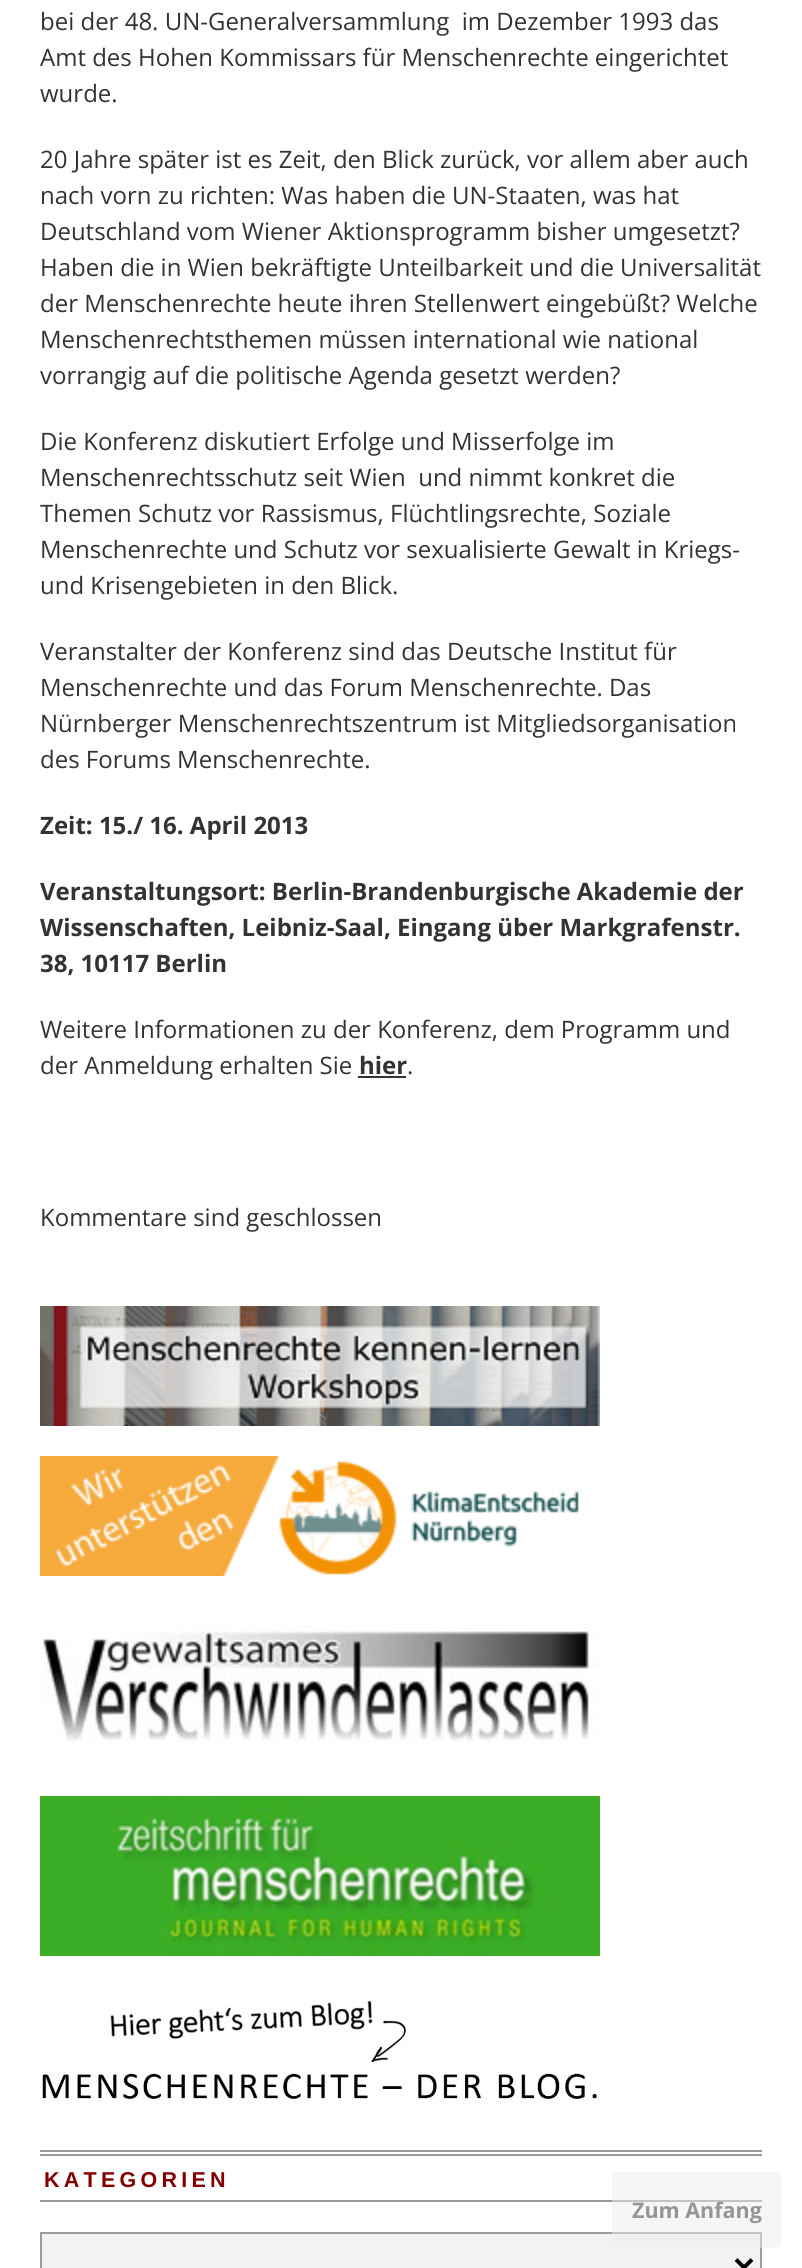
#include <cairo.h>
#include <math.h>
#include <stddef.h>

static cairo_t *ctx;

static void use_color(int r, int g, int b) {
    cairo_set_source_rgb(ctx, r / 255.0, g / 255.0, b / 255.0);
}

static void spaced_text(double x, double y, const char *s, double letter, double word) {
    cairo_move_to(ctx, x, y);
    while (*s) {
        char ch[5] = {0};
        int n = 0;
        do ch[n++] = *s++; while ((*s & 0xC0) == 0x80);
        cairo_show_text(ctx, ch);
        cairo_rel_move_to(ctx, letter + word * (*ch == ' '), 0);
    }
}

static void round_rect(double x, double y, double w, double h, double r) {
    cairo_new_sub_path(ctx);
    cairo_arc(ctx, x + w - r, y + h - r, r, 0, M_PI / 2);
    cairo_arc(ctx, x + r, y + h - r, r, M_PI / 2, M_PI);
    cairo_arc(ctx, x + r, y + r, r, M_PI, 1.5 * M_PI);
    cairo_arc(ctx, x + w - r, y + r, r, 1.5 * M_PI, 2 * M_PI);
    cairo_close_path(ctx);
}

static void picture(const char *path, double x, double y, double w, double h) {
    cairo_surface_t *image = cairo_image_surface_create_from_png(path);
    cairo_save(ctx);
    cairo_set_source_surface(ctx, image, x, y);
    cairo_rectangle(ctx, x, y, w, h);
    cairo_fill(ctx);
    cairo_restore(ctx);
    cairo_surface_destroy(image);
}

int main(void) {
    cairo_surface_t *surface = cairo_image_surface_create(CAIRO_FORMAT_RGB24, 802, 2268);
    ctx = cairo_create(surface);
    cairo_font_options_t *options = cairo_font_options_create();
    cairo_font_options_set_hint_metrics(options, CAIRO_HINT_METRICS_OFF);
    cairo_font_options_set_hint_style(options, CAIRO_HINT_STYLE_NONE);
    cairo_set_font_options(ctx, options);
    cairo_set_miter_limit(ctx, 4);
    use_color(255, 255, 255);
    cairo_paint(ctx);
    cairo_select_font_face(ctx, "Open Sans", CAIRO_FONT_SLANT_NORMAL, CAIRO_FONT_WEIGHT_NORMAL);
    cairo_set_font_size(ctx, 24);
    use_color(51, 51, 51);
    cairo_move_to(ctx, 40, 30);
    cairo_show_text(ctx, "bei der 48. UN-Generalversammlung  im Dezember 1993 das");
    cairo_move_to(ctx, 40, 66);
    cairo_show_text(ctx, "Amt des Hohen Kommissars für Menschenrechte eingerichtet");
    cairo_move_to(ctx, 40, 102);
    cairo_show_text(ctx, "wurde.");
    cairo_move_to(ctx, 40, 168);
    cairo_show_text(ctx, "20 Jahre später ist es Zeit, den Blick zurück, vor allem aber auch");
    cairo_move_to(ctx, 40, 204);
    cairo_show_text(ctx, "nach vorn zu richten: Was haben die UN-Staaten, was hat");
    cairo_move_to(ctx, 40, 240);
    cairo_show_text(ctx, "Deutschland vom Wiener Aktionsprogramm bisher umgesetzt?");
    cairo_move_to(ctx, 40, 276);
    cairo_show_text(ctx, "Haben die in Wien bekräftigte Unteilbarkeit und die Universalität");
    cairo_move_to(ctx, 40, 312);
    cairo_show_text(ctx, "der Menschenrechte heute ihren Stellenwert eingebüßt? Welche");
    cairo_move_to(ctx, 40, 348);
    cairo_show_text(ctx, "Menschenrechtsthemen müssen international wie national");
    cairo_move_to(ctx, 40, 384);
    cairo_show_text(ctx, "vorrangig auf die politische Agenda gesetzt werden?");
    cairo_move_to(ctx, 40, 450);
    cairo_show_text(ctx, "Die Konferenz diskutiert Erfolge und Misserfolge im");
    cairo_move_to(ctx, 40, 486);
    cairo_show_text(ctx, "Menschenrechtsschutz seit Wien  und nimmt konkret die");
    cairo_move_to(ctx, 40, 522);
    cairo_show_text(ctx, "Themen Schutz vor Rassismus, Flüchtlingsrechte, Soziale");
    cairo_move_to(ctx, 40, 558);
    cairo_show_text(ctx, "Menschenrechte und Schutz vor sexualisierte Gewalt in Kriegs-");
    cairo_move_to(ctx, 40, 594);
    cairo_show_text(ctx, "und Krisengebieten in den Blick.");
    cairo_move_to(ctx, 40, 660);
    cairo_show_text(ctx, "Veranstalter der Konferenz sind das Deutsche Institut für");
    cairo_move_to(ctx, 40, 696);
    cairo_show_text(ctx, "Menschenrechte und das Forum Menschenrechte. Das");
    cairo_move_to(ctx, 40, 732);
    cairo_show_text(ctx, "Nürnberger Menschenrechtszentrum ist Mitgliedsorganisation");
    cairo_move_to(ctx, 40, 768);
    cairo_show_text(ctx, "des Forums Menschenrechte.");
    cairo_select_font_face(ctx, "Open Sans", CAIRO_FONT_SLANT_NORMAL, CAIRO_FONT_WEIGHT_BOLD);
    cairo_move_to(ctx, 40, 834);
    cairo_show_text(ctx, "Zeit: 15./ 16. April 2013");
    cairo_move_to(ctx, 40, 900);
    cairo_show_text(ctx, "Veranstaltungsort: Berlin-Brandenburgische Akademie der");
    cairo_move_to(ctx, 40, 936);
    cairo_show_text(ctx, "Wissenschaften, Leibniz-Saal, Eingang über Markgrafenstr.");
    cairo_move_to(ctx, 40, 972);
    cairo_show_text(ctx, "38, 10117 Berlin");
    cairo_select_font_face(ctx, "Open Sans", CAIRO_FONT_SLANT_NORMAL, CAIRO_FONT_WEIGHT_NORMAL);
    cairo_move_to(ctx, 40, 1038);
    cairo_show_text(ctx, "Weitere Informationen zu der Konferenz, dem Programm und");
    cairo_move_to(ctx, 40, 1074);
    cairo_show_text(ctx, "der Anmeldung erhalten Sie");
    cairo_select_font_face(ctx, "Open Sans", CAIRO_FONT_SLANT_NORMAL, CAIRO_FONT_WEIGHT_BOLD);
    cairo_move_to(ctx, 359, 1074);
    cairo_show_text(ctx, "hier");
    cairo_rectangle(ctx, 358, 1076, 48, 2);
    cairo_fill(ctx);
    cairo_select_font_face(ctx, "Open Sans", CAIRO_FONT_SLANT_NORMAL, CAIRO_FONT_WEIGHT_NORMAL);
    cairo_move_to(ctx, 407, 1074);
    cairo_show_text(ctx, ".");
    cairo_move_to(ctx, 40, 1226);
    cairo_show_text(ctx, "Kommentare sind geschlossen");
    picture("img1.png", 40, 1306, 560, 120);
    picture("img2.png", 40, 1456, 539, 120);
    picture("img3.png", 42, 1624, 556, 118);
    picture("img4.png", 40, 1796, 560, 160);
    picture("img5.png", 41, 2000, 557, 100);
    use_color(153, 153, 153);
    cairo_rectangle(ctx, 40, 2150, 722, 2);
    cairo_fill(ctx);
    cairo_rectangle(ctx, 40, 2154, 722, 2);
    cairo_fill(ctx);
    cairo_rectangle(ctx, 40, 2200, 722, 2);
    cairo_fill(ctx);
    cairo_select_font_face(ctx, "Liberation Sans", CAIRO_FONT_SLANT_NORMAL, CAIRO_FONT_WEIGHT_BOLD);
    cairo_set_font_size(ctx, 21.5);
    use_color(132, 0, 0);
    spaced_text(44, 2187, "KATEGORIEN", 4.25, 0);
    use_color(242, 242, 242);
    cairo_rectangle(ctx, 41, 2233, 720, 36);
    cairo_fill_preserve(ctx);
    use_color(156, 156, 156);
    cairo_stroke(ctx);
    cairo_new_path(ctx);
    cairo_move_to(ctx, 736, 2259.5);
    cairo_line_to(ctx, 744, 2267.5);
    cairo_line_to(ctx, 752, 2259.5);
    use_color(0, 0, 0);
    cairo_set_line_width(ctx, 4);
    cairo_stroke(ctx);
    cairo_set_source_rgba(ctx, 0.933, 0.933, 0.933, 0.5);
    round_rect(612, 2172, 170, 76, 6);
    cairo_fill(ctx);
    cairo_select_font_face(ctx, "Open Sans", CAIRO_FONT_SLANT_NORMAL, CAIRO_FONT_WEIGHT_BOLD);
    use_color(149, 149, 149);
    cairo_move_to(ctx, 632, 2218);
    cairo_show_text(ctx, "Zum Anfang");
    cairo_surface_write_to_png(surface, "result.png");
    cairo_font_options_destroy(options);
    cairo_destroy(ctx);
    cairo_surface_destroy(surface);
    return 0;
}
